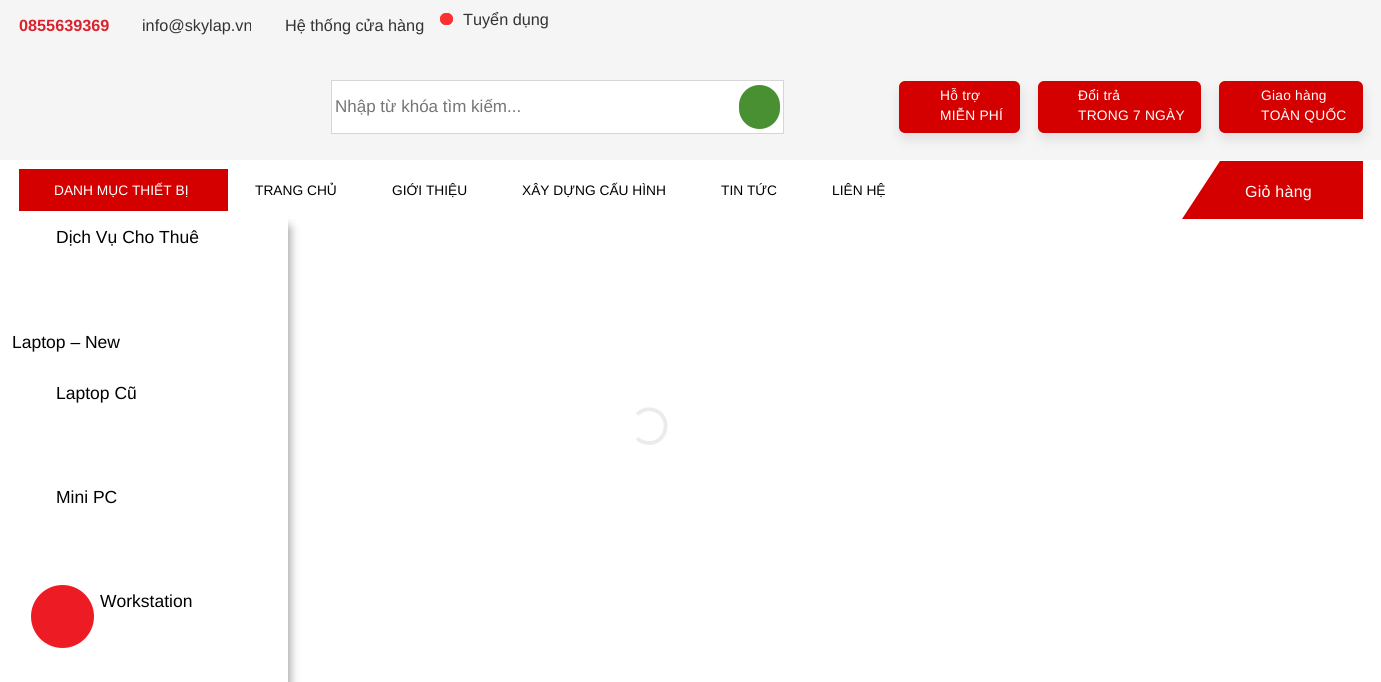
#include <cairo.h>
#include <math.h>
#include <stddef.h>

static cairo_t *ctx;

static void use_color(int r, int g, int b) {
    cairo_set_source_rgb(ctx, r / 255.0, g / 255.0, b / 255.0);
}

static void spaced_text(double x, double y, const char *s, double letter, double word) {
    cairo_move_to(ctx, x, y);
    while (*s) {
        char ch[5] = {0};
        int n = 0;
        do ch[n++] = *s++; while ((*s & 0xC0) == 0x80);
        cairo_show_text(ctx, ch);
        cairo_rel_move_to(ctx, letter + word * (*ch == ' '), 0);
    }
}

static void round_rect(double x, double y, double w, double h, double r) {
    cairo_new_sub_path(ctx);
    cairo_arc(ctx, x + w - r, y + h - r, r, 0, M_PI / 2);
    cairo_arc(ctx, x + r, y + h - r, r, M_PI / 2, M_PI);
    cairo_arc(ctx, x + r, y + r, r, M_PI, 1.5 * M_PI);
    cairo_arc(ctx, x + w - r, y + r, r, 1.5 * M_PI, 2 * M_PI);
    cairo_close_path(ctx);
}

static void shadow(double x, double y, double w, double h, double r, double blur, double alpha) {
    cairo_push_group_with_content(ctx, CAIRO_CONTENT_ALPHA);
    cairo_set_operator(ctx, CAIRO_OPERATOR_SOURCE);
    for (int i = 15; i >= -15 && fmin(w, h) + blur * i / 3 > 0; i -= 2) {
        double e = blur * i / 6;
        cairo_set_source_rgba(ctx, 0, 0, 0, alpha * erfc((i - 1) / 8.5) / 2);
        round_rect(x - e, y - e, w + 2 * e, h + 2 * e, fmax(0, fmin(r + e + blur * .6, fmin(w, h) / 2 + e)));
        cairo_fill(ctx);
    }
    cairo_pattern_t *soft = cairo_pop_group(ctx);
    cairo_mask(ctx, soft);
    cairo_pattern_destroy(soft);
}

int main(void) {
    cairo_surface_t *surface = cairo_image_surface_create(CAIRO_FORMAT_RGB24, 1381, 682);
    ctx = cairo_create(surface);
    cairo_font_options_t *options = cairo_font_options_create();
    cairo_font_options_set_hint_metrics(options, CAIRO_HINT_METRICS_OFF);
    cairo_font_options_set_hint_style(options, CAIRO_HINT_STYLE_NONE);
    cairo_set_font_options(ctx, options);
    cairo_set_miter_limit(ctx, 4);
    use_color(255, 255, 255);
    cairo_paint(ctx);
    use_color(245, 245, 245);
    cairo_rectangle(ctx, 0, 0, 1381, 160);
    cairo_fill(ctx);
    cairo_select_font_face(ctx, "Liberation Sans", CAIRO_FONT_SLANT_NORMAL, CAIRO_FONT_WEIGHT_BOLD);
    cairo_set_font_size(ctx, 16.25);
    use_color(217, 35, 46);
    cairo_move_to(ctx, 19, 31);
    cairo_show_text(ctx, "0855639369");
    cairo_select_font_face(ctx, "Liberation Sans", CAIRO_FONT_SLANT_NORMAL, CAIRO_FONT_WEIGHT_NORMAL);
    use_color(51, 51, 51);
    cairo_move_to(ctx, 142, 31);
    cairo_show_text(ctx, "info@skylap.vn");
    cairo_move_to(ctx, 285, 31);
    cairo_show_text(ctx, "Hệ thống cửa hàng");
    use_color(255, 51, 51);
    round_rect(440, 13, 13, 12, 6);
    cairo_fill(ctx);
    cairo_set_source_rgba(ctx, 0.933, 0.18, 0.141, 0.2);
    round_rect(440.5, 13.5, 12, 11, 5.5);
    cairo_fill_preserve(ctx);
    use_color(255, 51, 51);
    cairo_set_line_width(ctx, 1);
    cairo_stroke(ctx);
    use_color(51, 51, 51);
    cairo_move_to(ctx, 463, 25);
    cairo_show_text(ctx, "Tuyển dụng");
    use_color(255, 255, 255);
    cairo_rectangle(ctx, 331.5, 80.5, 452, 53);
    cairo_fill_preserve(ctx);
    use_color(214, 214, 214);
    cairo_stroke(ctx);
    cairo_set_font_size(ctx, 17);
    use_color(117, 117, 117);
    cairo_move_to(ctx, 335, 112);
    cairo_show_text(ctx, "Nhập từ khóa tìm kiếm...");
    use_color(73, 144, 50);
    round_rect(739, 85, 41, 44, 20.5);
    cairo_fill(ctx);
    use_color(0, 0, 0);
    shadow(900, 88, 121, 51, 6, 6, 0.1);
    use_color(212, 0, 0);
    round_rect(899, 81, 121, 52, 6);
    cairo_fill(ctx);
    cairo_set_font_size(ctx, 13.75);
    use_color(255, 255, 255);
    spaced_text(940, 100, "Hỗ trợ", 0.25, 0);
    spaced_text(940, 120, "MIỄN PHÍ", 0.25, 0);
    use_color(0, 0, 0);
    shadow(1039, 88, 164, 51, 6, 6, 0.1);
    use_color(212, 0, 0);
    round_rect(1038, 81, 163, 52, 6);
    cairo_fill(ctx);
    use_color(255, 255, 255);
    spaced_text(1078, 100, "Đổi trả", 0.25, 0);
    spaced_text(1078, 120, "TRONG 7 NGÀY", 0.25, 0);
    use_color(0, 0, 0);
    shadow(1220, 88, 144, 51, 6, 6, 0.1);
    use_color(212, 0, 0);
    round_rect(1219, 81, 144, 52, 6);
    cairo_fill(ctx);
    use_color(255, 255, 255);
    spaced_text(1261, 100, "Giao hàng", 0.25, 0);
    spaced_text(1261, 120, "TOÀN QUỐC", 0.25, 0);
    use_color(0, 0, 0);
    shadow(13, 225, 277, 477, 5, 5, 0.38);
    use_color(255, 255, 255);
    cairo_rectangle(ctx, 288, 217, 4, 2);
    cairo_fill(ctx);
    use_color(212, 0, 0);
    cairo_rectangle(ctx, 19, 169, 209, 42);
    cairo_fill(ctx);
    use_color(255, 255, 255);
    cairo_move_to(ctx, 54, 195);
    cairo_show_text(ctx, "DANH MỤC THIẾT BỊ");
    use_color(0, 0, 0);
    cairo_move_to(ctx, 255, 195);
    cairo_show_text(ctx, "TRANG CHỦ");
    cairo_move_to(ctx, 392, 195);
    cairo_show_text(ctx, "GIỚI THIỆU");
    cairo_move_to(ctx, 522, 195);
    cairo_show_text(ctx, "XÂY DỰNG CẤU HÌNH");
    cairo_move_to(ctx, 721, 195);
    cairo_show_text(ctx, "TIN TỨC");
    cairo_move_to(ctx, 832, 195);
    cairo_show_text(ctx, "LIÊN HỆ");
    use_color(212, 0, 0);
    cairo_rectangle(ctx, 1220, 161, 143, 58);
    cairo_fill(ctx);
    cairo_new_path(ctx);
    cairo_move_to(ctx, 1220, 161);
    cairo_line_to(ctx, 1220, 219);
    cairo_line_to(ctx, 1182, 219);
    cairo_close_path(ctx);
    cairo_fill(ctx);
    cairo_set_font_size(ctx, 16);
    use_color(255, 255, 255);
    spaced_text(1245, 197, "Giỏ hàng", 0.25, 0);
    round_rect(0, 211, 288, 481, 10);
    cairo_fill(ctx);
    cairo_set_font_size(ctx, 17.5);
    use_color(0, 0, 0);
    cairo_move_to(ctx, 56, 243);
    cairo_show_text(ctx, "Dịch Vụ Cho Thuê");
    cairo_move_to(ctx, 12, 348);
    cairo_show_text(ctx, "Laptop – New");
    cairo_move_to(ctx, 56, 399);
    cairo_show_text(ctx, "Laptop Cũ");
    cairo_move_to(ctx, 56, 503);
    cairo_show_text(ctx, "Mini PC");
    cairo_move_to(ctx, 100, 607);
    cairo_show_text(ctx, "Workstation");
    cairo_new_path(ctx);
    cairo_move_to(ctx, 637, 414.5);
    cairo_curve_to(ctx, 641, 410.5, 646.5, 408.5, 652, 409.5);
    cairo_curve_to(ctx, 672, 413.5, 669, 443, 649, 443);
    cairo_curve_to(ctx, 644.5, 443, 640, 441.5, 637, 438);
    use_color(235, 235, 235);
    cairo_set_line_width(ctx, 3.8);
    cairo_stroke(ctx);
    cairo_new_path(ctx);
    cairo_move_to(ctx, 637, 438);
    cairo_curve_to(ctx, 630.5, 431.5, 630.5, 421, 637, 414.5);
    use_color(255, 255, 255);
    cairo_stroke(ctx);
    use_color(237, 28, 36);
    cairo_arc(ctx, 62.5, 616.5, 31.5, 0, 2 * M_PI);
    cairo_fill(ctx);
    cairo_surface_write_to_png(surface, "result.png");
    cairo_font_options_destroy(options);
    cairo_destroy(ctx);
    cairo_surface_destroy(surface);
    return 0;
}
